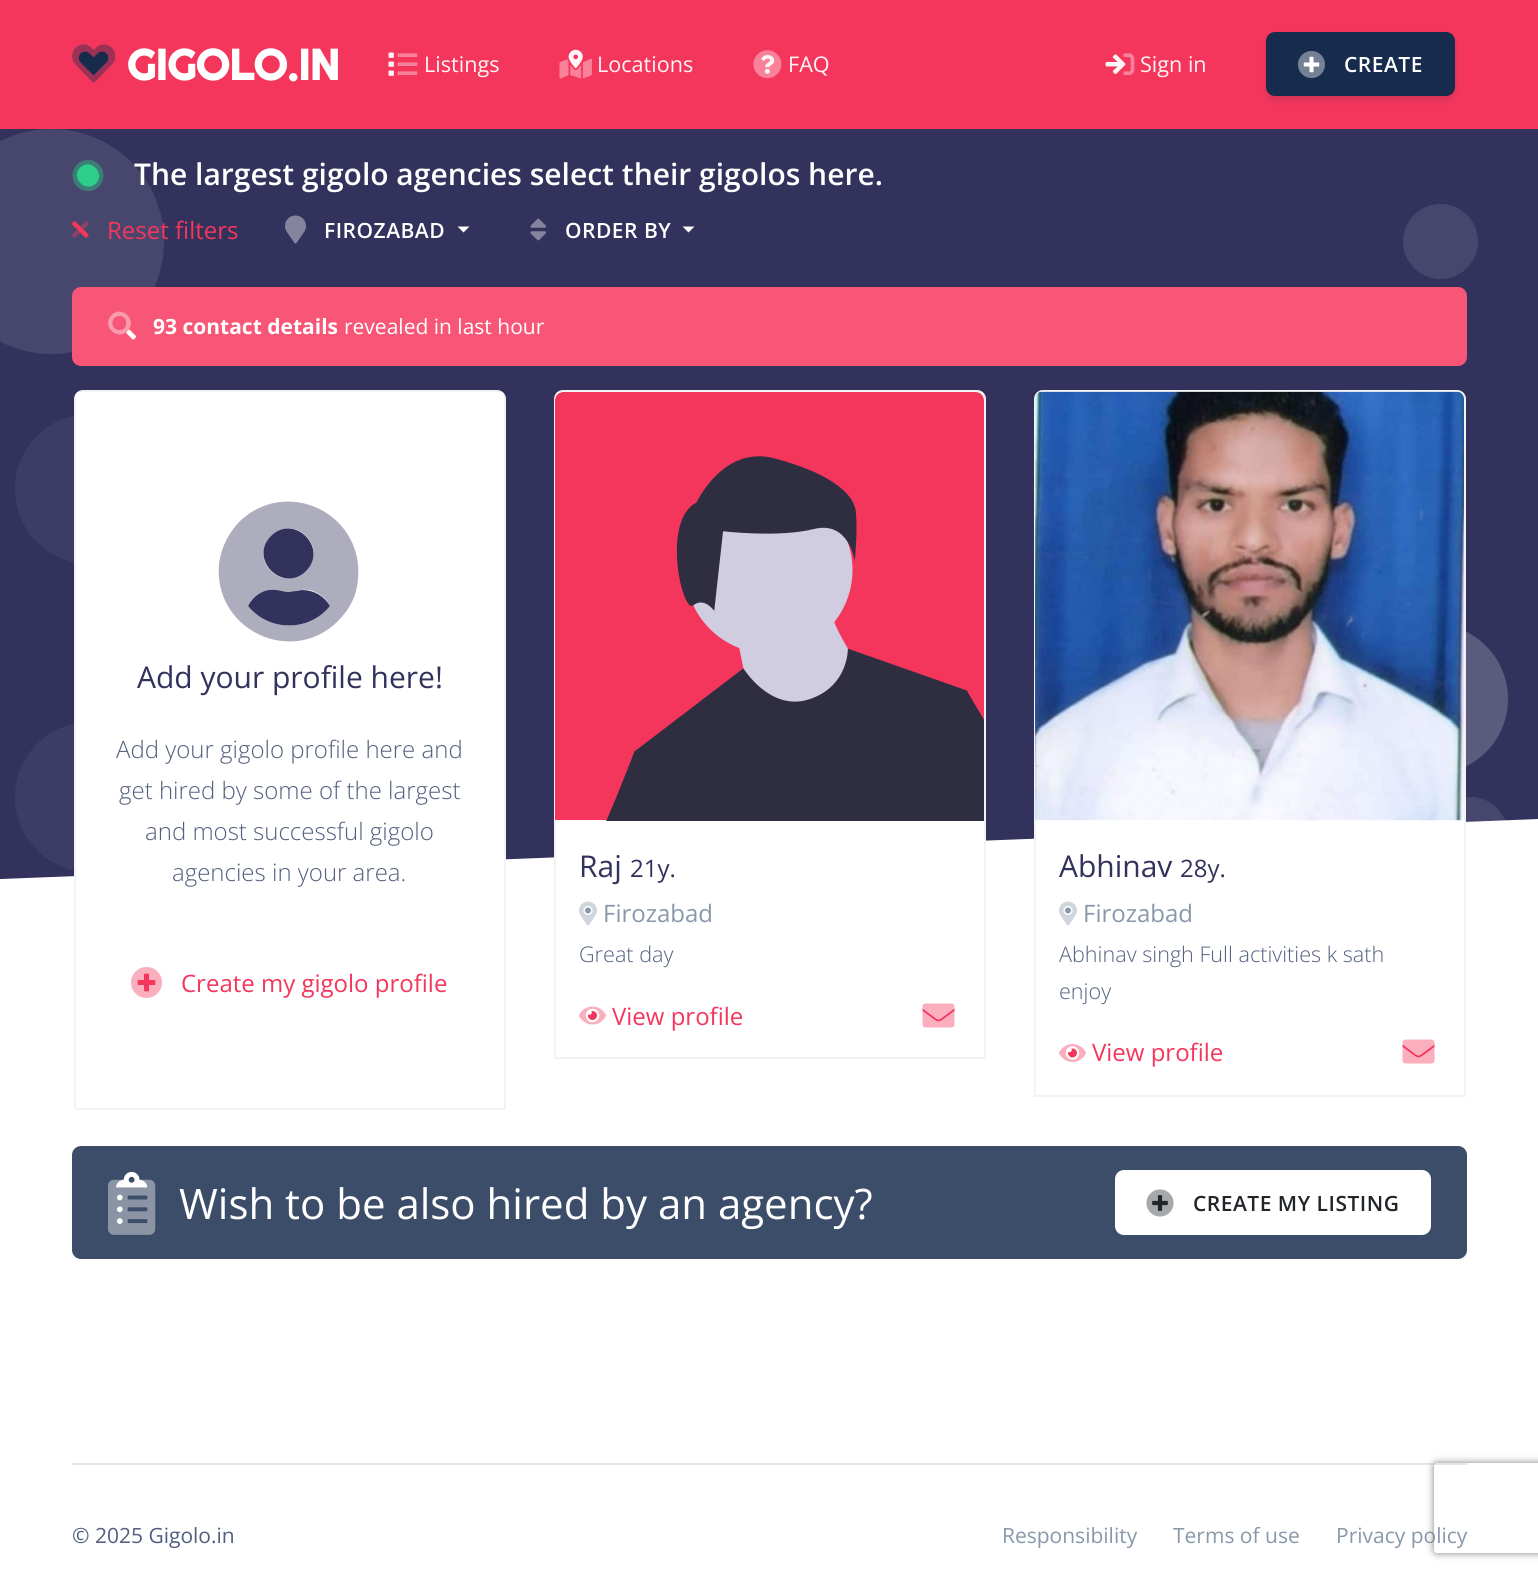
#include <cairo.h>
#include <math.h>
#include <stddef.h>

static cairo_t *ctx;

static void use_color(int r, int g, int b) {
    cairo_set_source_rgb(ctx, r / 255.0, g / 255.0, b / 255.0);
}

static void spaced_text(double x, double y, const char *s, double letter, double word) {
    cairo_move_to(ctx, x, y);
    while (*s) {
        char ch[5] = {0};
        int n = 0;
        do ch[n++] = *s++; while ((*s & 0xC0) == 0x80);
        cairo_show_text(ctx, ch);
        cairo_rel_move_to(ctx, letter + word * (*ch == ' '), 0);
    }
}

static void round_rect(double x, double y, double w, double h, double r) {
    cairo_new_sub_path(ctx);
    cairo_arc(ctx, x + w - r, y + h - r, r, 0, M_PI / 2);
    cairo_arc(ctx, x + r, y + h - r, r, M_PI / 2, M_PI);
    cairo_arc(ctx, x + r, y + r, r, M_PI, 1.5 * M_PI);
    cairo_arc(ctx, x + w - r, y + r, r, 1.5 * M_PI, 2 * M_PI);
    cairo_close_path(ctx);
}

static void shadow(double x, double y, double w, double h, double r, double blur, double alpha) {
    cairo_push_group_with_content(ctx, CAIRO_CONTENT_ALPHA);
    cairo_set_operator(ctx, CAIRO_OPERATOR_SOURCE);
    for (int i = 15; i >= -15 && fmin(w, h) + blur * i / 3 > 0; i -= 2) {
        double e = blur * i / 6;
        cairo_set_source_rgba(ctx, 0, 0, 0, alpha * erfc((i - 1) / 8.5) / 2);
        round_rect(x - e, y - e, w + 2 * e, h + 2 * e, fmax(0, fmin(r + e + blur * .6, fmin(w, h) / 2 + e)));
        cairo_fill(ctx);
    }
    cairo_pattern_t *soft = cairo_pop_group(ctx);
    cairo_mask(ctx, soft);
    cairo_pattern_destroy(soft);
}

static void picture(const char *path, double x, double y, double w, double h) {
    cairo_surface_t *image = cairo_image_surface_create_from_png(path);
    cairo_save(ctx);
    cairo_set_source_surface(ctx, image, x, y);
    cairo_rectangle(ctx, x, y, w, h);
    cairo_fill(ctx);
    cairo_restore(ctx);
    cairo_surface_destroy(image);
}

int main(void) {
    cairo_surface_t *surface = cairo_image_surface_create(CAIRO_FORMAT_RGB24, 1538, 1573);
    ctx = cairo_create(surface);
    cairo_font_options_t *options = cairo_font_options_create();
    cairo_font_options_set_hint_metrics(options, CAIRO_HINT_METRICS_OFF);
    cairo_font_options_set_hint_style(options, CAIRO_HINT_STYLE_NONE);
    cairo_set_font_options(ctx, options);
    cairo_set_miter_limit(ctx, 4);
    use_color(255, 255, 255);
    cairo_paint(ctx);
    use_color(245, 54, 92);
    cairo_rectangle(ctx, 0, 0, 1538, 129);
    cairo_fill(ctx);
    picture("img2.png", 78, 51, 31, 25);
    picture("img1.png", 72, 44, 44, 39);
    cairo_select_font_face(ctx, "Righteous", CAIRO_FONT_SLANT_NORMAL, CAIRO_FONT_WEIGHT_BOLD);
    cairo_set_font_size(ctx, 43);
    use_color(255, 255, 255);
    cairo_move_to(ctx, 127, 80);
    cairo_show_text(ctx, "GIGOLO.IN");
    picture("img3.png", 388, 52, 6, 24);
    picture("img4.png", 397, 53, 21, 22);
    cairo_select_font_face(ctx, "Open Sans", CAIRO_FONT_SLANT_NORMAL, CAIRO_FONT_WEIGHT_NORMAL);
    cairo_set_font_size(ctx, 21.6);
    use_color(255, 245, 247);
    cairo_move_to(ctx, 424, 72);
    cairo_show_text(ctx, "Listings");
    picture("img5.png", 568, 49, 15, 20);
    picture("img6.png", 559, 58, 33, 21);
    cairo_move_to(ctx, 597, 72);
    cairo_show_text(ctx, "Locations");
    picture("img8.png", 761, 54, 14, 20);
    picture("img7.png", 753, 50, 29, 29);
    cairo_move_to(ctx, 788, 72);
    cairo_show_text(ctx, "FAQ");
    picture("img9.png", 1105, 54, 21, 20);
    picture("img10.png", 1123, 53, 12, 22);
    cairo_move_to(ctx, 1140, 72);
    cairo_show_text(ctx, "Sign in");
    use_color(0, 0, 0);
    shadow(1266, 33, 189, 65, 9, 2, 0.08);
    use_color(50, 50, 93);
    shadow(1266, 38, 189, 64, 9, 4.5, 0.11);
    use_color(23, 43, 77);
    round_rect(1267, 33, 187, 62, 8);
    cairo_fill_preserve(ctx);
    cairo_stroke(ctx);
    picture("img12.png", 1303, 56, 17, 17);
    picture("img11.png", 1298, 51, 27, 27);
    cairo_select_font_face(ctx, "Open Sans SemiBold", CAIRO_FONT_SLANT_NORMAL, CAIRO_FONT_WEIGHT_NORMAL);
    cairo_set_font_size(ctx, 21);
    use_color(255, 255, 255);
    spaced_text(1344, 72, "CREATE", 0.5, 0);
    use_color(50, 50, 93);
    cairo_rectangle(ctx, 0, 129, 1538, 750);
    cairo_fill(ctx);
    use_color(71, 71, 109);
    cairo_arc(ctx, 51.5, 241.5, 112.5, 0, 2 * M_PI);
    cairo_fill(ctx);
    cairo_arc(ctx, 1440.5, 241.5, 37.5, 0, 2 * M_PI);
    cairo_fill(ctx);
    use_color(60, 60, 101);
    cairo_arc(ctx, 90, 489, 75, 0, 2 * M_PI);
    cairo_fill(ctx);
    cairo_set_source_rgba(ctx, 1, 1, 1, 0.2);
    cairo_arc(ctx, 1433, 699, 75, 0, 2 * M_PI);
    cairo_fill(ctx);
    use_color(60, 60, 101);
    cairo_arc(ctx, 90, 797, 75, 0, 2 * M_PI);
    cairo_fill(ctx);
    use_color(71, 71, 109);
    cairo_arc(ctx, 1470.5, 834.5, 37.5, 0, 2 * M_PI);
    cairo_fill(ctx);
    use_color(255, 255, 255);
    cairo_new_path(ctx);
    cairo_move_to(ctx, 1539, 819);
    cairo_line_to(ctx, 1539, 879);
    cairo_line_to(ctx, 0, 879);
    cairo_close_path(ctx);
    cairo_fill(ctx);
    use_color(45, 206, 137);
    cairo_new_path(ctx);
    cairo_move_to(ctx, 96, 183.5);
    cairo_curve_to(ctx, 85.5, 193.5, 70, 178, 80, 167.5);
    cairo_curve_to(ctx, 90.5, 157.5, 106, 173, 96, 183.5);
    cairo_close_path(ctx);
    cairo_fill(ctx);
    picture("img13.png", 72, 160, 32, 31);
    cairo_set_font_size(ctx, 30);
    use_color(255, 255, 255);
    cairo_move_to(ctx, 134, 185);
    cairo_show_text(ctx, "The largest gigolo agencies select their gigolos here.");
    picture("img14.png", 72, 221, 17, 17);
    picture("img15.png", 72, 221, 17, 17);
    cairo_select_font_face(ctx, "Open Sans", CAIRO_FONT_SLANT_NORMAL, CAIRO_FONT_WEIGHT_NORMAL);
    cairo_set_font_size(ctx, 24);
    use_color(245, 54, 92);
    cairo_move_to(ctx, 107, 239);
    cairo_show_text(ctx, "Reset filters");
    picture("img16.png", 285, 215, 21, 29);
    cairo_select_font_face(ctx, "Open Sans SemiBold", CAIRO_FONT_SLANT_NORMAL, CAIRO_FONT_WEIGHT_NORMAL);
    cairo_set_font_size(ctx, 21);
    use_color(255, 255, 255);
    spaced_text(324, 238, "FIROZABAD", 0.5, 0);
    cairo_new_path(ctx);
    cairo_move_to(ctx, 457.5, 226.5);
    cairo_line_to(ctx, 469.5, 226.5);
    cairo_line_to(ctx, 463.5, 232.5);
    cairo_close_path(ctx);
    cairo_fill(ctx);
    picture("img17.png", 530, 218, 16, 23);
    spaced_text(565, 238, "ORDER BY", 0.5, 0);
    cairo_new_path(ctx);
    cairo_move_to(ctx, 682.5, 226.5);
    cairo_line_to(ctx, 694.5, 226.5);
    cairo_line_to(ctx, 688.5, 232.5);
    cairo_close_path(ctx);
    cairo_fill(ctx);
    use_color(247, 86, 118);
    round_rect(72, 287, 1395, 79, 9);
    cairo_fill(ctx);
    picture("img18.png", 126, 329, 10, 11);
    cairo_set_source_rgba(ctx, 1, 1, 1, 0.4);
    cairo_new_path(ctx);
    cairo_move_to(ctx, 119.5, 316);
    cairo_curve_to(ctx, 110, 316, 110, 330, 119.5, 330);
    cairo_curve_to(ctx, 128.5, 330, 128.5, 316, 119.5, 316);
    cairo_close_path(ctx);
    cairo_move_to(ctx, 111.5, 315);
    cairo_curve_to(ctx, 122, 304.5, 138, 320.5, 127.5, 331);
    cairo_curve_to(ctx, 117, 341.5, 101, 325.5, 111.5, 315);
    cairo_close_path(ctx);
    cairo_fill(ctx);
    cairo_select_font_face(ctx, "Open Sans", CAIRO_FONT_SLANT_NORMAL, CAIRO_FONT_WEIGHT_BOLD);
    use_color(255, 255, 255);
    cairo_move_to(ctx, 153, 334);
    cairo_show_text(ctx, "93 contact details");
    cairo_select_font_face(ctx, "Open Sans", CAIRO_FONT_SLANT_NORMAL, CAIRO_FONT_WEIGHT_NORMAL);
    cairo_move_to(ctx, 344, 334);
    cairo_show_text(ctx, "revealed in last hour");
    round_rect(74, 390, 432, 720, 9);
    cairo_fill(ctx);
    cairo_rectangle(ctx, 75, 391, 430, 718);
    cairo_set_source_rgba(ctx, 0, 0, 0, 0.05);
    cairo_stroke(ctx);
    use_color(50, 50, 93);
    cairo_new_path(ctx);
    cairo_move_to(ctx, 306, 571);
    cairo_curve_to(ctx, 283, 594, 248, 559, 271, 536);
    cairo_curve_to(ctx, 294, 513, 329, 548, 306, 571);
    cairo_close_path(ctx);
    cairo_move_to(ctx, 302, 590);
    cairo_curve_to(ctx, 314, 590, 324, 596, 330, 606);
    cairo_curve_to(ctx, 309, 632, 269, 632, 248, 606);
    cairo_curve_to(ctx, 253, 596, 264, 588, 276, 590);
    cairo_curve_to(ctx, 280, 590, 284, 592, 289, 592);
    cairo_close_path(ctx);
    cairo_fill(ctx);
    cairo_set_source_rgba(ctx, 0.196, 0.196, 0.365, 0.4);
    cairo_new_path(ctx);
    cairo_move_to(ctx, 239, 522);
    cairo_curve_to(ctx, 286, 476, 364, 513, 358, 579);
    cairo_curve_to(ctx, 357, 595, 350, 609, 338, 621);
    cairo_curve_to(ctx, 292, 667, 213, 630, 219, 564);
    cairo_curve_to(ctx, 221, 548, 228, 534, 239, 522);
    cairo_close_path(ctx);
    cairo_move_to(ctx, 306, 536);
    cairo_curve_to(ctx, 283, 513, 248, 548, 271, 571);
    cairo_curve_to(ctx, 294, 594, 329, 559, 306, 536);
    cairo_close_path(ctx);
    cairo_move_to(ctx, 248, 606);
    cairo_curve_to(ctx, 269, 632, 308, 632, 330, 606);
    cairo_curve_to(ctx, 325, 596, 313, 588, 301, 590);
    cairo_curve_to(ctx, 297, 590, 294, 592, 289, 592);
    cairo_curve_to(ctx, 284, 592, 280, 590, 276, 590);
    cairo_curve_to(ctx, 264, 588, 253, 596, 248, 606);
    cairo_close_path(ctx);
    cairo_fill(ctx);
    cairo_set_font_size(ctx, 30);
    use_color(50, 50, 93);
    cairo_move_to(ctx, 137, 688);
    cairo_show_text(ctx, "Add your profile here!");
    cairo_select_font_face(ctx, "Open Sans Light", CAIRO_FONT_SLANT_NORMAL, CAIRO_FONT_WEIGHT_NORMAL);
    cairo_set_font_size(ctx, 24);
    use_color(82, 95, 127);
    cairo_move_to(ctx, 116, 758);
    cairo_show_text(ctx, "Add your gigolo profile here and");
    cairo_move_to(ctx, 119, 799);
    cairo_show_text(ctx, "get hired by some of the largest");
    cairo_move_to(ctx, 145, 840);
    cairo_show_text(ctx, "and most successful gigolo");
    cairo_move_to(ctx, 172, 881);
    cairo_show_text(ctx, "agencies in your area.");
    picture("img20.png", 137, 973, 19, 19);
    picture("img19.png", 131, 967, 31, 31);
    cairo_select_font_face(ctx, "Open Sans", CAIRO_FONT_SLANT_NORMAL, CAIRO_FONT_WEIGHT_NORMAL);
    use_color(245, 54, 92);
    cairo_move_to(ctx, 181, 992);
    cairo_show_text(ctx, "Create my gigolo profile");
    use_color(255, 255, 255);
    round_rect(554, 390, 432, 669, 9);
    cairo_fill(ctx);
    cairo_rectangle(ctx, 555, 391, 430, 667);
    cairo_set_source_rgba(ctx, 0, 0, 0, 0.05);
    cairo_stroke(ctx);
    picture("img21.png", 555, 392, 429, 429);
    cairo_set_font_size(ctx, 30);
    use_color(50, 50, 93);
    cairo_move_to(ctx, 579, 877);
    cairo_show_text(ctx, "Raj");
    cairo_set_font_size(ctx, 24);
    cairo_move_to(ctx, 630, 877);
    cairo_show_text(ctx, "21y.");
    picture("img23.png", 585, 907, 6, 7);
    picture("img22.png", 579, 901, 18, 25);
    use_color(136, 152, 170);
    cairo_move_to(ctx, 603, 922);
    cairo_show_text(ctx, "Firozabad");
    cairo_select_font_face(ctx, "Open Sans Light", CAIRO_FONT_SLANT_NORMAL, CAIRO_FONT_WEIGHT_NORMAL);
    cairo_set_font_size(ctx, 21.6);
    use_color(82, 95, 127);
    cairo_move_to(ctx, 579, 962);
    cairo_show_text(ctx, "Great day");
    picture("img25.png", 588, 1011, 9, 9);
    picture("img24.png", 579, 1006, 27, 19);
    cairo_select_font_face(ctx, "Open Sans", CAIRO_FONT_SLANT_NORMAL, CAIRO_FONT_WEIGHT_NORMAL);
    cairo_set_font_size(ctx, 24);
    use_color(245, 54, 92);
    cairo_move_to(ctx, 612, 1025);
    cairo_show_text(ctx, "View profile");
    picture("img27.png", 922, 1008, 33, 14);
    picture("img26.png", 922, 1003, 33, 25);
    use_color(255, 255, 255);
    round_rect(1034, 390, 432, 707, 9);
    cairo_fill(ctx);
    cairo_rectangle(ctx, 1035, 391, 430, 705);
    cairo_set_source_rgba(ctx, 0, 0, 0, 0.05);
    cairo_stroke(ctx);
    picture("img28.png", 1035, 391, 429, 430);
    cairo_set_font_size(ctx, 30);
    use_color(50, 50, 93);
    cairo_move_to(ctx, 1059, 877);
    cairo_show_text(ctx, "Abhinav");
    cairo_set_font_size(ctx, 24);
    cairo_move_to(ctx, 1180, 877);
    cairo_show_text(ctx, "28y.");
    picture("img23.png", 1065, 907, 6, 7);
    picture("img22.png", 1059, 901, 18, 25);
    use_color(136, 152, 170);
    cairo_move_to(ctx, 1083, 922);
    cairo_show_text(ctx, "Firozabad");
    cairo_select_font_face(ctx, "Open Sans Light", CAIRO_FONT_SLANT_NORMAL, CAIRO_FONT_WEIGHT_NORMAL);
    cairo_set_font_size(ctx, 21.6);
    use_color(82, 95, 127);
    cairo_move_to(ctx, 1059, 962);
    cairo_show_text(ctx, "Abhinav singh Full activities k sath");
    cairo_move_to(ctx, 1059, 999);
    cairo_show_text(ctx, "enjoy");
    picture("img30.png", 1068, 1048, 9, 10);
    picture("img29.png", 1059, 1044, 27, 18);
    cairo_select_font_face(ctx, "Open Sans", CAIRO_FONT_SLANT_NORMAL, CAIRO_FONT_WEIGHT_NORMAL);
    cairo_set_font_size(ctx, 24);
    use_color(245, 54, 92);
    cairo_move_to(ctx, 1092, 1061);
    cairo_show_text(ctx, "View profile");
    picture("img27.png", 1402, 1044, 33, 14);
    picture("img26.png", 1402, 1039, 33, 25);
    use_color(60, 77, 105);
    round_rect(72, 1146, 1395, 113, 9);
    cairo_fill(ctx);
    picture("img31.png", 115, 1171, 33, 53);
    picture("img32.png", 108, 1179, 48, 56);
    cairo_set_font_size(ctx, 42);
    use_color(255, 255, 255);
    cairo_move_to(ctx, 179, 1219);
    cairo_show_text(ctx, "Wish to be also hired by an agency?");
    round_rect(1116, 1171, 314, 63, 8);
    cairo_fill_preserve(ctx);
    cairo_stroke(ctx);
    picture("img34.png", 1152, 1195, 16, 16);
    picture("img33.png", 1146, 1189, 28, 28);
    cairo_select_font_face(ctx, "Open Sans SemiBold", CAIRO_FONT_SLANT_NORMAL, CAIRO_FONT_WEIGHT_NORMAL);
    cairo_set_font_size(ctx, 21);
    use_color(33, 37, 41);
    spaced_text(1193, 1211, "CREATE MY LISTING", 0.5, 0);
    use_color(230, 230, 230);
    cairo_rectangle(ctx, 72, 1463, 1395, 2);
    cairo_fill(ctx);
    cairo_select_font_face(ctx, "Open Sans", CAIRO_FONT_SLANT_NORMAL, CAIRO_FONT_WEIGHT_NORMAL);
    use_color(82, 95, 127);
    cairo_move_to(ctx, 72, 1543);
    cairo_show_text(ctx, "© 2025 Gigolo.in");
    use_color(136, 152, 170);
    cairo_move_to(ctx, 1002, 1543);
    cairo_show_text(ctx, "Responsibility");
    cairo_move_to(ctx, 1173, 1543);
    cairo_show_text(ctx, "Terms of use");
    cairo_move_to(ctx, 1336, 1543);
    cairo_show_text(ctx, "Privacy policy");
    cairo_save(ctx);
    cairo_set_fill_rule(ctx, CAIRO_FILL_RULE_EVEN_ODD);
    cairo_new_path(ctx);
    cairo_move_to(ctx, 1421, 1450);
    cairo_line_to(ctx, 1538, 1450);
    cairo_line_to(ctx, 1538, 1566);
    cairo_line_to(ctx, 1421, 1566);
    cairo_close_path(ctx);
    cairo_move_to(ctx, 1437, 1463);
    cairo_line_to(ctx, 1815, 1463);
    cairo_curve_to(ctx, 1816.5, 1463, 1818, 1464.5, 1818, 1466);
    cairo_line_to(ctx, 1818, 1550);
    cairo_curve_to(ctx, 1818, 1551.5, 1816.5, 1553, 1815, 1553);
    cairo_line_to(ctx, 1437, 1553);
    cairo_curve_to(ctx, 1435.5, 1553, 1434, 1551.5, 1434, 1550);
    cairo_line_to(ctx, 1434, 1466);
    cairo_curve_to(ctx, 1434, 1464.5, 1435.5, 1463, 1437, 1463);
    cairo_close_path(ctx);
    cairo_clip(ctx);
    use_color(128, 128, 128);
    shadow(1434, 1463, 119, 90, 3, 4, 1);
    cairo_restore(ctx);
    cairo_surface_write_to_png(surface, "result.png");
    cairo_font_options_destroy(options);
    cairo_destroy(ctx);
    cairo_surface_destroy(surface);
    return 0;
}
